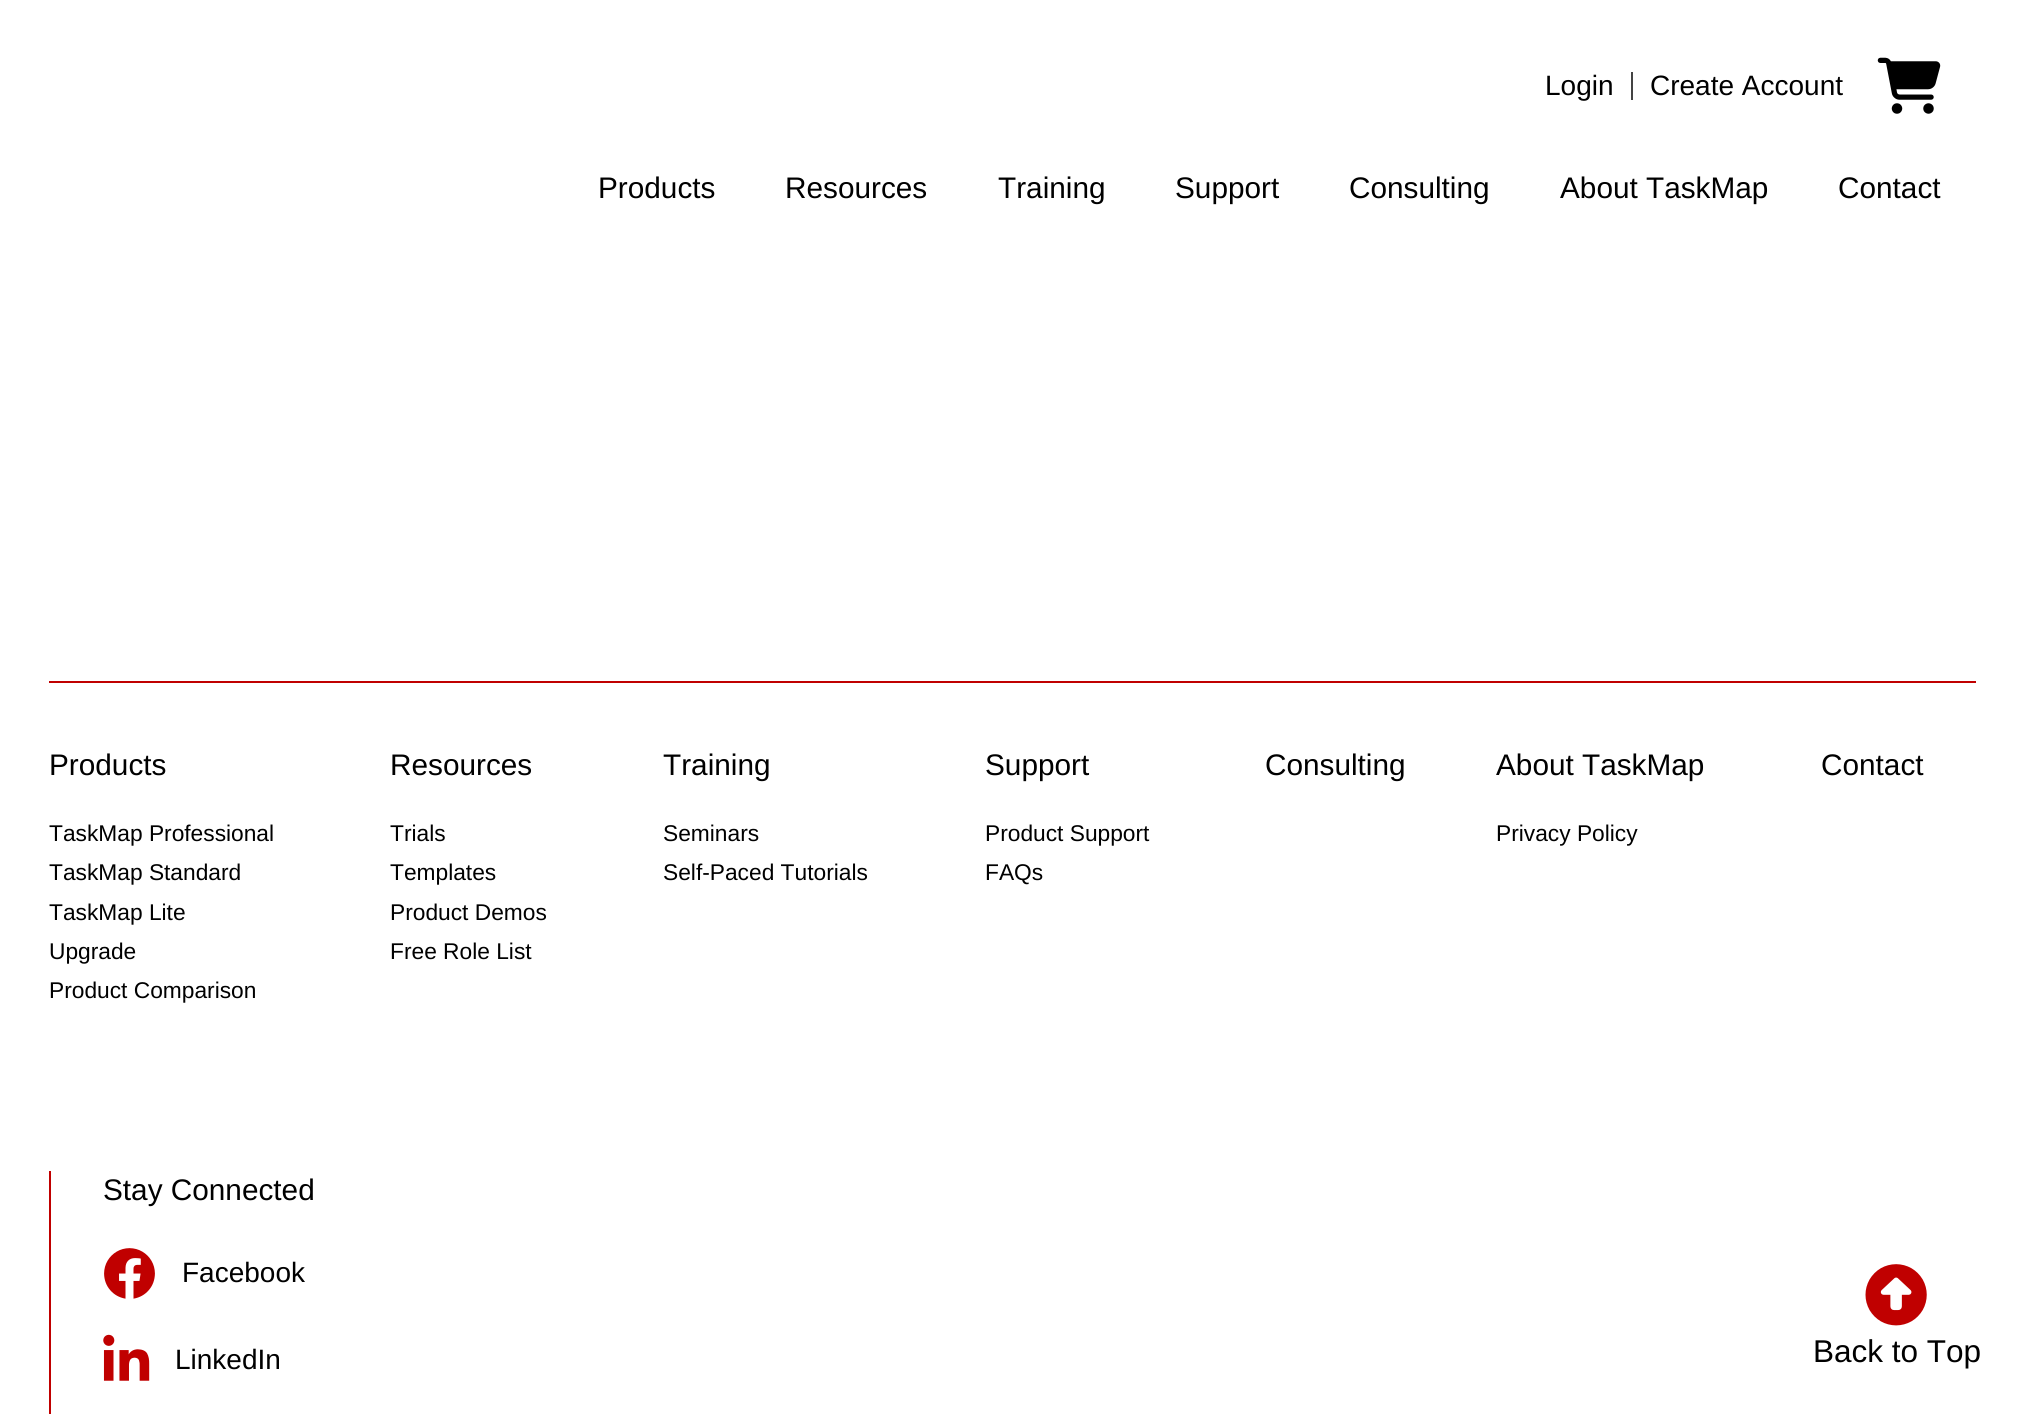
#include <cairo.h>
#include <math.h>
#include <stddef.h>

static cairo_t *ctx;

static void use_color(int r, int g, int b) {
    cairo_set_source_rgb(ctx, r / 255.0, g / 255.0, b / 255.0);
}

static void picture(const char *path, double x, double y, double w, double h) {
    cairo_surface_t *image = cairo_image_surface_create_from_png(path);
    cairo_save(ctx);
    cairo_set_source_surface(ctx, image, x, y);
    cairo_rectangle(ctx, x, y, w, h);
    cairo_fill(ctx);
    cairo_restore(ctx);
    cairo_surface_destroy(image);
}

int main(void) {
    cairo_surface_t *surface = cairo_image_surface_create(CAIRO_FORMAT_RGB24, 2024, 1414);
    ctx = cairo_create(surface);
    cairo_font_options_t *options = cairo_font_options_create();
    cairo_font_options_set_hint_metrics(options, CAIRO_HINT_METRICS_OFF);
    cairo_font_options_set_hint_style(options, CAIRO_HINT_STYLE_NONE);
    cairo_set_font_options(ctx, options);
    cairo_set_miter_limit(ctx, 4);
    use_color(255, 255, 255);
    cairo_paint(ctx);
    use_color(68, 68, 68);
    cairo_rectangle(ctx, 1631, 72, 2, 28);
    cairo_fill(ctx);
    cairo_select_font_face(ctx, "Liberation Sans", CAIRO_FONT_SLANT_NORMAL, CAIRO_FONT_WEIGHT_NORMAL);
    cairo_set_font_size(ctx, 28);
    use_color(0, 0, 0);
    cairo_move_to(ctx, 1545, 95);
    cairo_show_text(ctx, "Login");
    cairo_move_to(ctx, 1650, 95);
    cairo_show_text(ctx, "Create Account");
    picture("img1.png", 1877, 57, 64, 57);
    cairo_set_font_size(ctx, 29.75);
    cairo_move_to(ctx, 598, 198);
    cairo_show_text(ctx, "Products");
    cairo_move_to(ctx, 785, 198);
    cairo_show_text(ctx, "Resources");
    cairo_move_to(ctx, 998, 198);
    cairo_show_text(ctx, "Training");
    cairo_move_to(ctx, 1175, 198);
    cairo_show_text(ctx, "Support");
    cairo_move_to(ctx, 1349, 198);
    cairo_show_text(ctx, "Consulting");
    cairo_move_to(ctx, 1560, 198);
    cairo_show_text(ctx, "About TaskMap");
    cairo_move_to(ctx, 1838, 198);
    cairo_show_text(ctx, "Contact");
    use_color(192, 0, 0);
    cairo_rectangle(ctx, 49, 681, 1927, 2);
    cairo_fill(ctx);
    use_color(0, 0, 0);
    cairo_move_to(ctx, 49, 775);
    cairo_show_text(ctx, "Products");
    cairo_set_font_size(ctx, 22.75);
    cairo_move_to(ctx, 49, 841);
    cairo_show_text(ctx, "TaskMap Professional");
    cairo_move_to(ctx, 49, 880);
    cairo_show_text(ctx, "TaskMap Standard");
    cairo_move_to(ctx, 49, 920);
    cairo_show_text(ctx, "TaskMap Lite");
    cairo_move_to(ctx, 49, 959);
    cairo_show_text(ctx, "Upgrade");
    cairo_move_to(ctx, 49, 998);
    cairo_show_text(ctx, "Product Comparison");
    cairo_set_font_size(ctx, 29.75);
    cairo_move_to(ctx, 390, 775);
    cairo_show_text(ctx, "Resources");
    cairo_set_font_size(ctx, 22.75);
    cairo_move_to(ctx, 390, 841);
    cairo_show_text(ctx, "Trials");
    cairo_move_to(ctx, 390, 880);
    cairo_show_text(ctx, "Templates");
    cairo_move_to(ctx, 390, 920);
    cairo_show_text(ctx, "Product Demos");
    cairo_move_to(ctx, 390, 959);
    cairo_show_text(ctx, "Free Role List");
    cairo_set_font_size(ctx, 29.75);
    cairo_move_to(ctx, 663, 775);
    cairo_show_text(ctx, "Training");
    cairo_set_font_size(ctx, 22.75);
    cairo_move_to(ctx, 663, 841);
    cairo_show_text(ctx, "Seminars");
    cairo_move_to(ctx, 663, 880);
    cairo_show_text(ctx, "Self-Paced Tutorials");
    cairo_set_font_size(ctx, 29.75);
    cairo_move_to(ctx, 985, 775);
    cairo_show_text(ctx, "Support");
    cairo_set_font_size(ctx, 22.75);
    cairo_move_to(ctx, 985, 841);
    cairo_show_text(ctx, "Product Support");
    cairo_move_to(ctx, 985, 880);
    cairo_show_text(ctx, "FAQs");
    cairo_set_font_size(ctx, 29.75);
    cairo_move_to(ctx, 1265, 775);
    cairo_show_text(ctx, "Consulting");
    cairo_move_to(ctx, 1496, 775);
    cairo_show_text(ctx, "About TaskMap");
    cairo_set_font_size(ctx, 22.75);
    cairo_move_to(ctx, 1496, 841);
    cairo_show_text(ctx, "Privacy Policy");
    cairo_set_font_size(ctx, 29.75);
    cairo_move_to(ctx, 1821, 775);
    cairo_show_text(ctx, "Contact");
    use_color(192, 0, 0);
    cairo_rectangle(ctx, 49, 1171, 2, 243);
    cairo_fill(ctx);
    use_color(0, 0, 0);
    cairo_move_to(ctx, 103, 1200);
    cairo_show_text(ctx, "Stay Connected");
    picture("img2.png", 104, 1248, 51, 51);
    cairo_set_font_size(ctx, 28);
    cairo_move_to(ctx, 182, 1282);
    cairo_show_text(ctx, "Facebook");
    picture("img3.png", 103, 1334, 47, 47);
    cairo_move_to(ctx, 175, 1369);
    cairo_show_text(ctx, "LinkedIn");
    picture("img4.png", 1865, 1264, 62, 62);
    cairo_set_font_size(ctx, 31.5);
    cairo_move_to(ctx, 1813, 1362);
    cairo_show_text(ctx, "Back to Top");
    cairo_surface_write_to_png(surface, "result.png");
    cairo_font_options_destroy(options);
    cairo_destroy(ctx);
    cairo_surface_destroy(surface);
    return 0;
}
